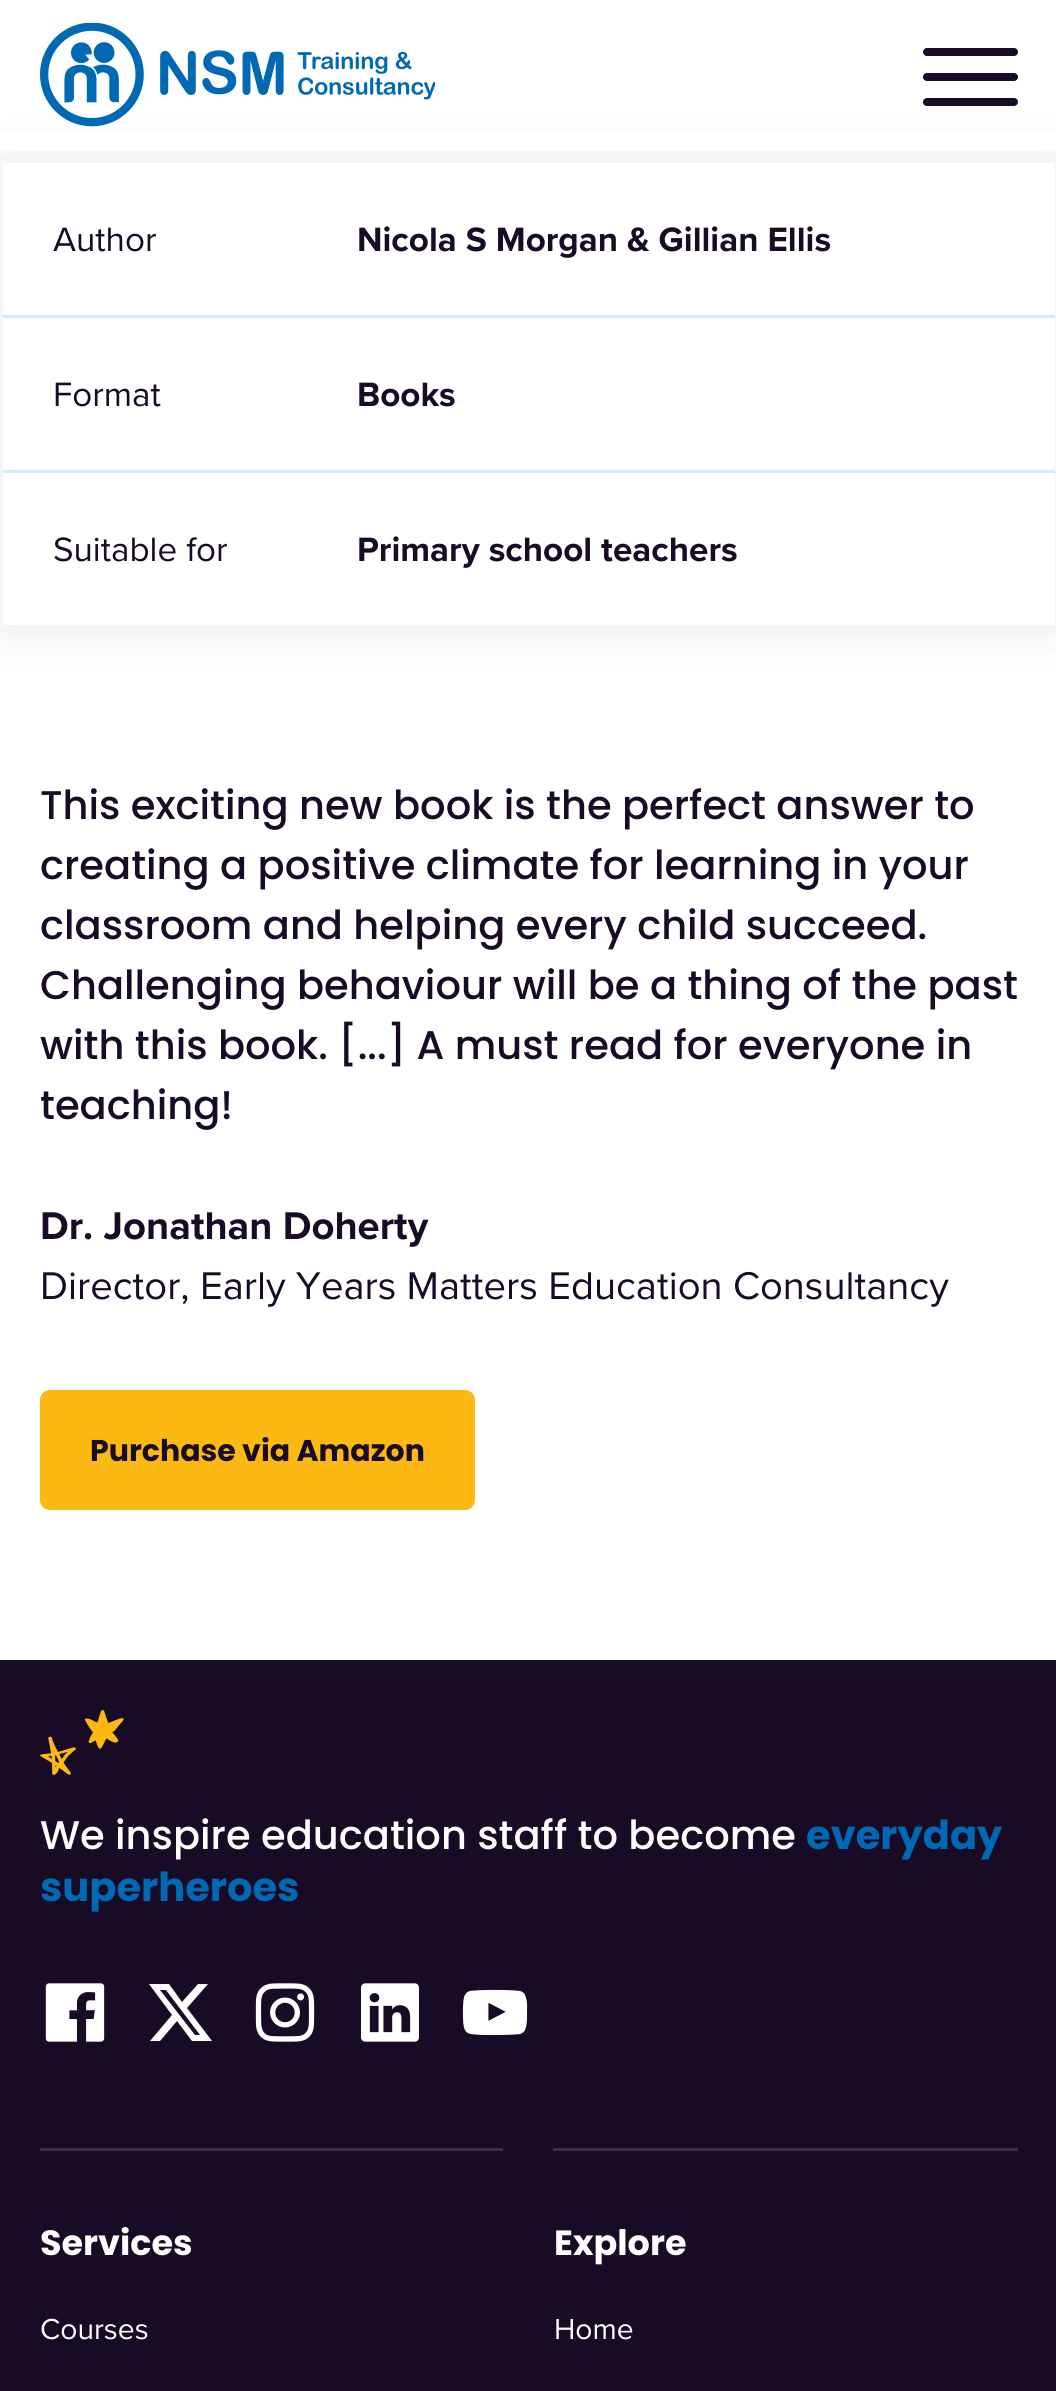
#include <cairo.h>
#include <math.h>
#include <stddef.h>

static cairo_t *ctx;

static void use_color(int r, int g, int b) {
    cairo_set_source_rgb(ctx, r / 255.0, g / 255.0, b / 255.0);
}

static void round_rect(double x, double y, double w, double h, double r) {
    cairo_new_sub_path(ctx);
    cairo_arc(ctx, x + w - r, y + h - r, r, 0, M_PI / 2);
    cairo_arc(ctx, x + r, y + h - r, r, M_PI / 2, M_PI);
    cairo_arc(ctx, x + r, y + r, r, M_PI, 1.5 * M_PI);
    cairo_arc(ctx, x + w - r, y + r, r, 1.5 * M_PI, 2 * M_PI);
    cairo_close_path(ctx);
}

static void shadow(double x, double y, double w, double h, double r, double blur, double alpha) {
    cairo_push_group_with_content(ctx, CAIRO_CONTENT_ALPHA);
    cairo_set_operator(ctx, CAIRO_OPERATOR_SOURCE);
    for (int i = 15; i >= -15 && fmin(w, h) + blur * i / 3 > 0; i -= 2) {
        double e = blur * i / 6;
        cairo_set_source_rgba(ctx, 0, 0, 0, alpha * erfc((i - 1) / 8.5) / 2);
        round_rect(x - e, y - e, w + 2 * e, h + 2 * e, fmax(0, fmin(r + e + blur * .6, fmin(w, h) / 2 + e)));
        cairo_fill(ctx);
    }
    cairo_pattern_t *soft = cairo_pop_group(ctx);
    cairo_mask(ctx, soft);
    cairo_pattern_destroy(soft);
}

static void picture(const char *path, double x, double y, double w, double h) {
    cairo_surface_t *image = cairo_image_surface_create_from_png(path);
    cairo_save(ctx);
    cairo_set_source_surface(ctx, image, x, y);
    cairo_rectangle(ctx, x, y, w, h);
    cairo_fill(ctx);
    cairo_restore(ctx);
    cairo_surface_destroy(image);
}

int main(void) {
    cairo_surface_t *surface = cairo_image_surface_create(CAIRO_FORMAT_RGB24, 1056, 2391);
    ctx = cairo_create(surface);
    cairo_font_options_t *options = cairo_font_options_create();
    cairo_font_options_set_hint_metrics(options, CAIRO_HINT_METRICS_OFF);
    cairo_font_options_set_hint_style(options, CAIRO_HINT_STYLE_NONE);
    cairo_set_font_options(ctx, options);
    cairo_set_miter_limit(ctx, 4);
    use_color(255, 255, 255);
    cairo_paint(ctx);
    cairo_save(ctx);
    cairo_set_fill_rule(ctx, CAIRO_FILL_RULE_EVEN_ODD);
    cairo_new_path(ctx);
    cairo_move_to(ctx, 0, 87);
    cairo_line_to(ctx, 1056, 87);
    cairo_line_to(ctx, 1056, 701);
    cairo_line_to(ctx, 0, 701);
    cairo_close_path(ctx);
    cairo_move_to(ctx, 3, 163);
    cairo_line_to(ctx, 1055, 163);
    cairo_line_to(ctx, 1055, 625);
    cairo_line_to(ctx, 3, 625);
    cairo_close_path(ctx);
    cairo_clip(ctx);
    use_color(24, 11, 37);
    shadow(3, 163, 1052, 462, 0, 25, 0.1);
    cairo_restore(ctx);
    use_color(255, 255, 255);
    cairo_rectangle(ctx, 0, 132, 1056, 18);
    cairo_fill(ctx);
    picture("img1.png", 40, 23, 395, 104);
    use_color(24, 11, 37);
    round_rect(923, 48, 95, 8, 4);
    cairo_fill(ctx);
    round_rect(923, 73, 95, 8, 4);
    cairo_fill(ctx);
    round_rect(923, 98, 95, 8, 4);
    cairo_fill(ctx);
    use_color(211, 237, 246);
    cairo_rectangle(ctx, 3, 315, 1052, 3);
    cairo_fill(ctx);
    cairo_select_font_face(ctx, "Proxima Nova", CAIRO_FONT_SLANT_NORMAL, CAIRO_FONT_WEIGHT_NORMAL);
    cairo_set_font_size(ctx, 35);
    use_color(24, 11, 37);
    cairo_move_to(ctx, 53, 251);
    cairo_show_text(ctx, "Author");
    cairo_select_font_face(ctx, "Proxima Nova", CAIRO_FONT_SLANT_NORMAL, CAIRO_FONT_WEIGHT_BOLD);
    cairo_move_to(ctx, 357, 251);
    cairo_show_text(ctx, "Nicola S Morgan & Gillian Ellis");
    use_color(211, 237, 246);
    cairo_rectangle(ctx, 3, 470, 1052, 3);
    cairo_fill(ctx);
    cairo_select_font_face(ctx, "Proxima Nova", CAIRO_FONT_SLANT_NORMAL, CAIRO_FONT_WEIGHT_NORMAL);
    use_color(24, 11, 37);
    cairo_move_to(ctx, 53, 406);
    cairo_show_text(ctx, "Format");
    cairo_select_font_face(ctx, "Proxima Nova", CAIRO_FONT_SLANT_NORMAL, CAIRO_FONT_WEIGHT_BOLD);
    cairo_move_to(ctx, 357, 406);
    cairo_show_text(ctx, "Books");
    cairo_select_font_face(ctx, "Proxima Nova", CAIRO_FONT_SLANT_NORMAL, CAIRO_FONT_WEIGHT_NORMAL);
    cairo_move_to(ctx, 53, 561);
    cairo_show_text(ctx, "Suitable for");
    cairo_select_font_face(ctx, "Proxima Nova", CAIRO_FONT_SLANT_NORMAL, CAIRO_FONT_WEIGHT_BOLD);
    cairo_move_to(ctx, 357, 561);
    cairo_show_text(ctx, "Primary school teachers");
    cairo_select_font_face(ctx, "Poppins Medium", CAIRO_FONT_SLANT_NORMAL, CAIRO_FONT_WEIGHT_NORMAL);
    cairo_set_font_size(ctx, 40);
    cairo_move_to(ctx, 40, 819);
    cairo_show_text(ctx, "This exciting new book is the perfect answer to");
    cairo_move_to(ctx, 40, 879);
    cairo_show_text(ctx, "creating a positive climate for learning in your");
    cairo_move_to(ctx, 40, 939);
    cairo_show_text(ctx, "classroom and helping every child succeed.");
    cairo_move_to(ctx, 40, 999);
    cairo_show_text(ctx, "Challenging behaviour will be a thing of the past");
    cairo_move_to(ctx, 40, 1059);
    cairo_show_text(ctx, "with this book. [...] A must read for everyone in");
    cairo_move_to(ctx, 40, 1119);
    cairo_show_text(ctx, "teaching!");
    cairo_select_font_face(ctx, "Proxima Nova", CAIRO_FONT_SLANT_NORMAL, CAIRO_FONT_WEIGHT_BOLD);
    cairo_move_to(ctx, 40, 1239);
    cairo_show_text(ctx, "Dr. Jonathan Doherty");
    cairo_select_font_face(ctx, "Proxima Nova", CAIRO_FONT_SLANT_NORMAL, CAIRO_FONT_WEIGHT_NORMAL);
    cairo_move_to(ctx, 40, 1299);
    cairo_show_text(ctx, "Director, Early Years Matters Education Consultancy");
    use_color(253, 185, 19);
    round_rect(40, 1390, 435, 120, 10);
    cairo_fill(ctx);
    cairo_select_font_face(ctx, "Poppins", CAIRO_FONT_SLANT_NORMAL, CAIRO_FONT_WEIGHT_BOLD);
    cairo_set_font_size(ctx, 30);
    use_color(24, 11, 37);
    cairo_move_to(ctx, 90, 1461);
    cairo_show_text(ctx, "Purchase via Amazon");
    cairo_rectangle(ctx, 0, 1660, 1056, 731);
    cairo_fill(ctx);
    picture("img2.png", 40, 1710, 84, 65);
    cairo_select_font_face(ctx, "Poppins Medium", CAIRO_FONT_SLANT_NORMAL, CAIRO_FONT_WEIGHT_NORMAL);
    cairo_set_font_size(ctx, 40);
    use_color(255, 255, 255);
    cairo_move_to(ctx, 40, 1849);
    cairo_show_text(ctx, "We inspire education staff to become");
    cairo_select_font_face(ctx, "Poppins", CAIRO_FONT_SLANT_NORMAL, CAIRO_FONT_WEIGHT_BOLD);
    use_color(0, 105, 179);
    cairo_move_to(ctx, 806, 1849);
    cairo_show_text(ctx, "everyday");
    cairo_move_to(ctx, 40, 1901);
    cairo_show_text(ctx, "superheroes");
    picture("img3.png", 45, 1983, 60, 59);
    use_color(255, 255, 255);
    cairo_new_path(ctx);
    cairo_move_to(ctx, 198, 1984);
    cairo_line_to(ctx, 208, 1984);
    cairo_line_to(ctx, 187, 2008);
    cairo_line_to(ctx, 212, 2041);
    cairo_line_to(ctx, 192, 2041);
    cairo_line_to(ctx, 177, 2021);
    cairo_line_to(ctx, 160, 2041);
    cairo_line_to(ctx, 150, 2041);
    cairo_line_to(ctx, 172, 2015);
    cairo_line_to(ctx, 149, 1984);
    cairo_line_to(ctx, 169, 1984);
    cairo_line_to(ctx, 182, 2002);
    cairo_close_path(ctx);
    cairo_move_to(ctx, 195, 2035);
    cairo_line_to(ctx, 200, 2035);
    cairo_line_to(ctx, 166, 1990);
    cairo_line_to(ctx, 160, 1990);
    cairo_close_path(ctx);
    cairo_fill(ctx);
    picture("img4.png", 255, 1983, 60, 59);
    picture("img5.png", 361, 1983, 58, 59);
    picture("img6.png", 462, 1989, 66, 46);
    use_color(59, 48, 70);
    cairo_rectangle(ctx, 40, 2148, 463, 3);
    cairo_fill(ctx);
    cairo_set_font_size(ctx, 35);
    use_color(255, 255, 255);
    cairo_move_to(ctx, 40, 2255);
    cairo_show_text(ctx, "Services");
    cairo_select_font_face(ctx, "Proxima Nova", CAIRO_FONT_SLANT_NORMAL, CAIRO_FONT_WEIGHT_NORMAL);
    cairo_set_font_size(ctx, 30);
    cairo_move_to(ctx, 40, 2339);
    cairo_show_text(ctx, "Courses");
    use_color(59, 48, 70);
    cairo_rectangle(ctx, 553, 2148, 465, 3);
    cairo_fill(ctx);
    cairo_select_font_face(ctx, "Poppins", CAIRO_FONT_SLANT_NORMAL, CAIRO_FONT_WEIGHT_BOLD);
    cairo_set_font_size(ctx, 35);
    use_color(255, 255, 255);
    cairo_move_to(ctx, 554, 2255);
    cairo_show_text(ctx, "Explore");
    cairo_select_font_face(ctx, "Proxima Nova", CAIRO_FONT_SLANT_NORMAL, CAIRO_FONT_WEIGHT_NORMAL);
    cairo_set_font_size(ctx, 30);
    cairo_move_to(ctx, 554, 2339);
    cairo_show_text(ctx, "Home");
    cairo_surface_write_to_png(surface, "result.png");
    cairo_font_options_destroy(options);
    cairo_destroy(ctx);
    cairo_surface_destroy(surface);
    return 0;
}
